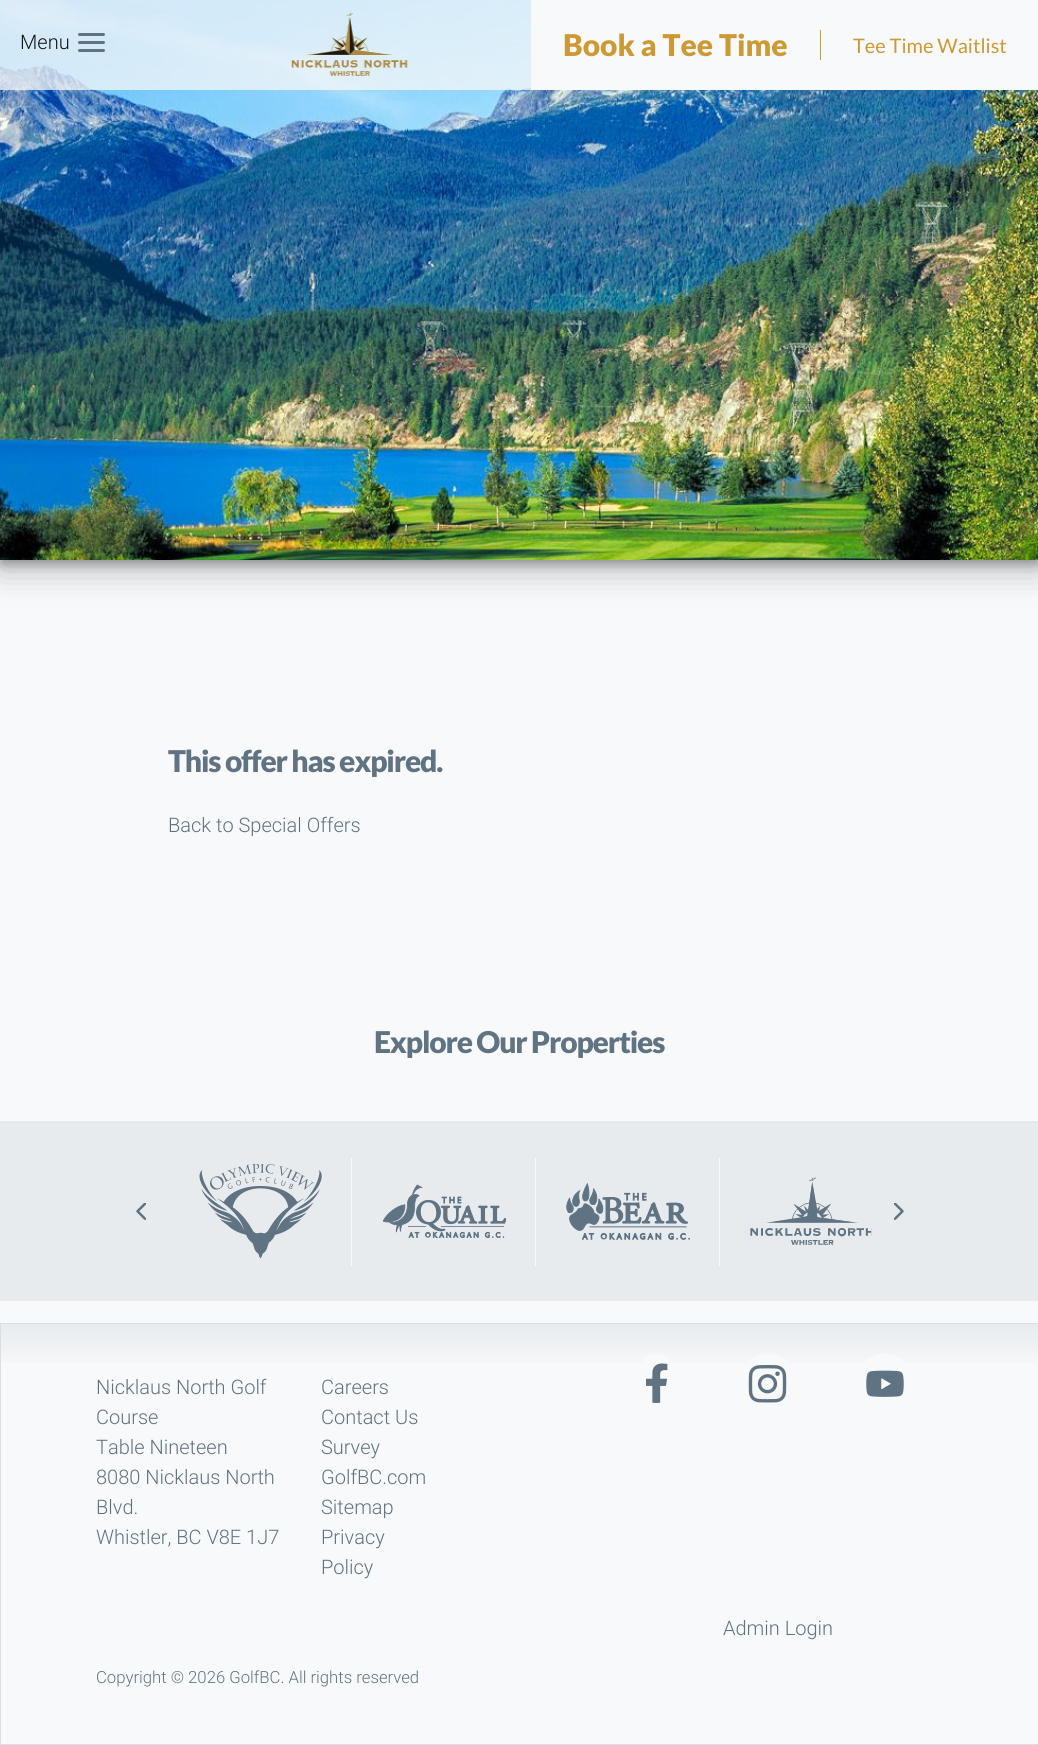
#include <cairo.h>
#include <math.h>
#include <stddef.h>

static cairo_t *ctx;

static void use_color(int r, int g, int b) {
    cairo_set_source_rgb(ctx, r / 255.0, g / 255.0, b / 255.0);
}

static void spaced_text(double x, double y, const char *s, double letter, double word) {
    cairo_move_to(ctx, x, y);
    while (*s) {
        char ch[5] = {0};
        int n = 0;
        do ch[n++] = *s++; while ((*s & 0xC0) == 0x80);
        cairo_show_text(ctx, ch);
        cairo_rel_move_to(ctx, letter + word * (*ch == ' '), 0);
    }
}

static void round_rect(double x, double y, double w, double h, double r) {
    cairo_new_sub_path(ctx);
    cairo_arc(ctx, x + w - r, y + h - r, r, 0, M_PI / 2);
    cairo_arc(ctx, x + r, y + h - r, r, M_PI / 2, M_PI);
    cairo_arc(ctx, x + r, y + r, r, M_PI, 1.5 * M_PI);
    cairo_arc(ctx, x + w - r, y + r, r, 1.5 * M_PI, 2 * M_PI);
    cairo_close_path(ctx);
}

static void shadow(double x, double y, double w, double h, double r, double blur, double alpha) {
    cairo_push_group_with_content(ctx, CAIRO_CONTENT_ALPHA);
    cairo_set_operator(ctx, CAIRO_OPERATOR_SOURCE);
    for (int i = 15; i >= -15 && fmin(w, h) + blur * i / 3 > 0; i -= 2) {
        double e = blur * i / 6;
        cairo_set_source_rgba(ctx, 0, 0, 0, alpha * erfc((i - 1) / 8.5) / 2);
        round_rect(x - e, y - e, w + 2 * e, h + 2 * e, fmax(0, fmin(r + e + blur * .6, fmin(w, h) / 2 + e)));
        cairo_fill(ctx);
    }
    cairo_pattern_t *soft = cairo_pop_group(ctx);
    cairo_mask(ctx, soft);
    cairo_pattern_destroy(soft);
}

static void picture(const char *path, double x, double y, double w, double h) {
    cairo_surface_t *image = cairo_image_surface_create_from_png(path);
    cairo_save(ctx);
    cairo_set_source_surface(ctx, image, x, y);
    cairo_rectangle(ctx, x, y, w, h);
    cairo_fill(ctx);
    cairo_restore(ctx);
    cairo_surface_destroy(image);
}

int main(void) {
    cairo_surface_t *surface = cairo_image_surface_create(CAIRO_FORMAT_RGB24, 1038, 1745);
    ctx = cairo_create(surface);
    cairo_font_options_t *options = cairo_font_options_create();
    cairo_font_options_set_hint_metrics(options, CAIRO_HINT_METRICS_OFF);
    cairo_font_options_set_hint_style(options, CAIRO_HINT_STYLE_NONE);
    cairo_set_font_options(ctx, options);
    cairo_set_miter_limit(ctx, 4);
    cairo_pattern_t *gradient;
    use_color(248, 249, 250);
    cairo_paint(ctx);
    use_color(0, 0, 0);
    shadow(0, 11, 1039, 560, 0, 17, 0.24);
    shadow(0, 4, 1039, 560, 0, 5.5, 0.3);
    picture("img1.png", 0, 0, 1038, 560);
    cairo_set_source_rgba(ctx, 0.969, 0.969, 0.969, 0.75);
    cairo_rectangle(ctx, 0, 0, 531, 90);
    cairo_fill(ctx);
    picture("img2.png", 291, 13, 117, 63);
    use_color(248, 249, 250);
    cairo_rectangle(ctx, 531, 0, 507, 90);
    cairo_fill(ctx);
    cairo_select_font_face(ctx, "Lato Black", CAIRO_FONT_SLANT_NORMAL, CAIRO_FONT_WEIGHT_NORMAL);
    cairo_set_font_size(ctx, 30);
    use_color(204, 153, 51);
    cairo_move_to(ctx, 563, 56);
    cairo_show_text(ctx, "Book a Tee Time");
    cairo_rectangle(ctx, 820, 30, 1, 30);
    cairo_fill(ctx);
    cairo_select_font_face(ctx, "Lato", CAIRO_FONT_SLANT_NORMAL, CAIRO_FONT_WEIGHT_NORMAL);
    cairo_set_font_size(ctx, 20);
    cairo_move_to(ctx, 853, 53);
    cairo_show_text(ctx, "Tee Time Waitlist");
    cairo_select_font_face(ctx, "Roboto Light", CAIRO_FONT_SLANT_NORMAL, CAIRO_FONT_WEIGHT_NORMAL);
    use_color(20, 20, 20);
    cairo_move_to(ctx, 20, 49);
    cairo_show_text(ctx, "Menu");
    use_color(96, 115, 131);
    round_rect(78, 33, 27, 3, 1.5);
    cairo_fill(ctx);
    round_rect(78, 41, 27, 3, 1.5);
    cairo_fill(ctx);
    round_rect(78, 49, 27, 3, 1.5);
    cairo_fill(ctx);
    cairo_select_font_face(ctx, "Lato Black", CAIRO_FONT_SLANT_NORMAL, CAIRO_FONT_WEIGHT_NORMAL);
    cairo_set_font_size(ctx, 30);
    spaced_text(168, 772, "This offer has expired.", -1.2, 0);
    cairo_select_font_face(ctx, "Roboto Light", CAIRO_FONT_SLANT_NORMAL, CAIRO_FONT_WEIGHT_NORMAL);
    cairo_set_font_size(ctx, 20);
    cairo_move_to(ctx, 168, 832);
    cairo_show_text(ctx, "Back to Special Offers");
    cairo_select_font_face(ctx, "Lato Black", CAIRO_FONT_SLANT_NORMAL, CAIRO_FONT_WEIGHT_NORMAL);
    cairo_set_font_size(ctx, 30);
    spaced_text(374, 1053, "Explore Our Properties", -1.2, 0);
    use_color(231, 235, 238);
    cairo_rectangle(ctx, 0, 1121, 1038, 180);
    cairo_fill(ctx);
    picture("img3.png", 136, 1203, 10, 17);
    picture("img4.png", 199, 1164, 123, 95);
    use_color(248, 249, 250);
    cairo_rectangle(ctx, 351, 1158, 1, 108);
    cairo_fill(ctx);
    picture("img5.png", 383, 1184, 123, 54);
    cairo_rectangle(ctx, 535, 1158, 1, 108);
    cairo_fill(ctx);
    picture("img6.png", 566, 1182, 124, 58);
    cairo_rectangle(ctx, 719, 1158, 1, 108);
    cairo_fill(ctx);
    picture("img7.png", 750, 1177, 122, 68);
    picture("img8.png", 894, 1203, 10, 17);
    gradient = cairo_pattern_create_linear(519, 1324, 519, 1744);
    cairo_pattern_add_color_stop_rgba(gradient, 0, 0.906, 0.922, 0.933, 1);
    cairo_pattern_add_color_stop_rgba(gradient, 0.11, 0.973, 0.976, 0.98, 1);
    cairo_set_source(ctx, gradient);
    cairo_pattern_destroy(gradient);
    cairo_rectangle(ctx, 1, 1324, 1037, 39);
    cairo_fill(ctx);
    cairo_rectangle(ctx, 0.5, 1323.5, 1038, 421);
    use_color(216, 223, 228);
    cairo_set_line_width(ctx, 1);
    cairo_stroke(ctx);
    cairo_select_font_face(ctx, "Roboto Light", CAIRO_FONT_SLANT_NORMAL, CAIRO_FONT_WEIGHT_NORMAL);
    cairo_set_font_size(ctx, 20);
    use_color(96, 115, 131);
    cairo_move_to(ctx, 96, 1394);
    cairo_show_text(ctx, "Nicklaus North Golf");
    cairo_move_to(ctx, 96, 1424);
    cairo_show_text(ctx, "Course");
    cairo_move_to(ctx, 96, 1454);
    cairo_show_text(ctx, "Table Nineteen");
    cairo_move_to(ctx, 96, 1484);
    cairo_show_text(ctx, "8080 Nicklaus North");
    cairo_move_to(ctx, 96, 1514);
    cairo_show_text(ctx, "Blvd.");
    cairo_move_to(ctx, 96, 1544);
    cairo_show_text(ctx, "Whistler, BC V8E 1J7");
    cairo_move_to(ctx, 321, 1394);
    cairo_show_text(ctx, "Careers");
    cairo_move_to(ctx, 321, 1424);
    cairo_show_text(ctx, "Contact Us");
    cairo_move_to(ctx, 321, 1454);
    cairo_show_text(ctx, "Survey");
    cairo_move_to(ctx, 321, 1484);
    cairo_show_text(ctx, "GolfBC.com");
    cairo_move_to(ctx, 321, 1514);
    cairo_show_text(ctx, "Sitemap");
    cairo_move_to(ctx, 321, 1544);
    cairo_show_text(ctx, "Privacy");
    cairo_move_to(ctx, 321, 1574);
    cairo_show_text(ctx, "Policy");
    picture("img9.png", 644, 1354, 25, 49);
    picture("img10.png", 748, 1354, 39, 49);
    picture("img11.png", 866, 1354, 38, 43);
    cairo_move_to(ctx, 723, 1635);
    cairo_show_text(ctx, "Admin Login");
    cairo_set_font_size(ctx, 16.7);
    cairo_move_to(ctx, 96, 1683);
    cairo_show_text(ctx, "Copyright © 2026 GolfBC. All rights reserved");
    cairo_surface_write_to_png(surface, "result.png");
    cairo_font_options_destroy(options);
    cairo_destroy(ctx);
    cairo_surface_destroy(surface);
    return 0;
}
